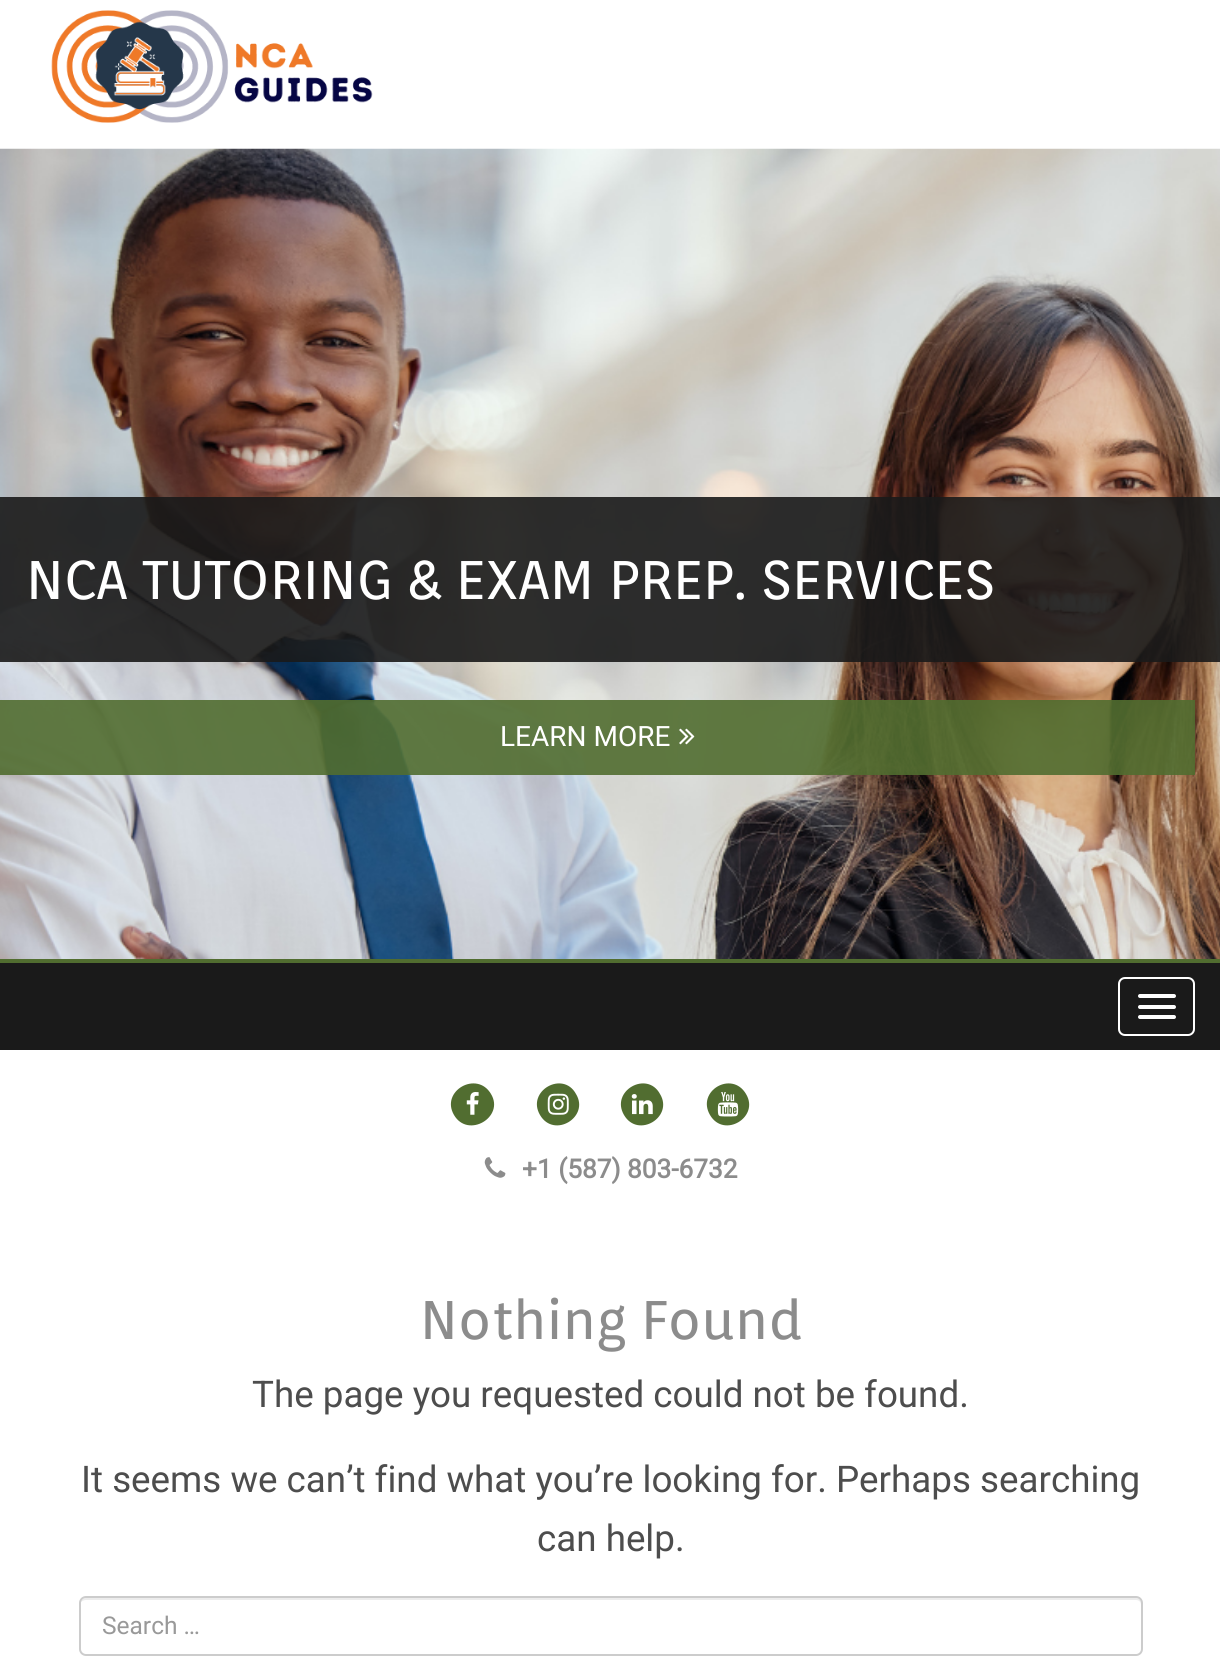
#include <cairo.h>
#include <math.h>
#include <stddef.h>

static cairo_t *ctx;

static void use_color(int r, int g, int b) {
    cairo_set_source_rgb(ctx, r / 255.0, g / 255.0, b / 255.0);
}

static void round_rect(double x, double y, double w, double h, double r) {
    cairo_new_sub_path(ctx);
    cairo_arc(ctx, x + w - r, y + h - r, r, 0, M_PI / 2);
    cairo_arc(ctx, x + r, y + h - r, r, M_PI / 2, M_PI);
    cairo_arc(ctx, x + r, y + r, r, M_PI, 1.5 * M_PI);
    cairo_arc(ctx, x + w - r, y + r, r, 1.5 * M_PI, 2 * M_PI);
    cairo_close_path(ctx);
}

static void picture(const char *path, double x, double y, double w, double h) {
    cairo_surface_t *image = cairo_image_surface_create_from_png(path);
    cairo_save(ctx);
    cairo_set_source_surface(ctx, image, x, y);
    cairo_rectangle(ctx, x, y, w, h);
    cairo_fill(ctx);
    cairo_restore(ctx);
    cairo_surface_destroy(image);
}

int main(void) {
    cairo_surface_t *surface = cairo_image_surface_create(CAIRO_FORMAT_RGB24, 1220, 1679);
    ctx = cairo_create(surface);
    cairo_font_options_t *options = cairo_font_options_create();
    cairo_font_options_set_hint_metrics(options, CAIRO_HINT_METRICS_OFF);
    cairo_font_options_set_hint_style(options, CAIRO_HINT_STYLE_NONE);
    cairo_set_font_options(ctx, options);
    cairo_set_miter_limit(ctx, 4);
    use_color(255, 255, 255);
    cairo_paint(ctx);
    picture("img1.png", 0, 148, 1220, 811);
    picture("img2.png", 51, 10, 322, 113);
    cairo_set_source_rgba(ctx, 0.102, 0.102, 0.102, 0.9);
    cairo_rectangle(ctx, 0, 497, 1220, 165);
    cairo_fill(ctx);
    cairo_select_font_face(ctx, "Orienta", CAIRO_FONT_SLANT_NORMAL, CAIRO_FONT_WEIGHT_NORMAL);
    cairo_set_font_size(ctx, 54.25);
    use_color(255, 255, 255);
    cairo_move_to(ctx, 26, 599);
    cairo_show_text(ctx, "NCA TUTORING & EXAM PREP. SERVICES");
    cairo_set_source_rgba(ctx, 0.318, 0.427, 0.188, 0.9);
    cairo_rectangle(ctx, 0, 700, 1195, 75);
    cairo_fill(ctx);
    cairo_select_font_face(ctx, "Roboto", CAIRO_FONT_SLANT_NORMAL, CAIRO_FONT_WEIGHT_NORMAL);
    cairo_set_font_size(ctx, 28);
    use_color(255, 255, 255);
    cairo_move_to(ctx, 500, 746);
    cairo_show_text(ctx, "LEARN MORE");
    picture("img3.png", 679, 728, 16, 17);
    use_color(26, 26, 26);
    cairo_rectangle(ctx, 0, 963, 1220, 87);
    cairo_fill(ctx);
    use_color(81, 109, 48);
    cairo_rectangle(ctx, 0, 959, 1220, 4);
    cairo_fill(ctx);
    round_rect(1119, 978, 75, 57, 6);
    use_color(255, 255, 255);
    cairo_stroke(ctx);
    round_rect(1138, 994, 38, 4, 2);
    cairo_fill(ctx);
    round_rect(1138, 1005, 38, 4, 2);
    cairo_fill(ctx);
    round_rect(1138, 1015, 38, 4, 2);
    cairo_fill(ctx);
    use_color(81, 109, 48);
    cairo_new_path(ctx);
    cairo_move_to(ctx, 491, 1094);
    cairo_curve_to(ctx, 505, 1117, 468, 1139, 454, 1115);
    cairo_curve_to(ctx, 440, 1091, 477, 1070, 491, 1094);
    cairo_close_path(ctx);
    cairo_fill(ctx);
    picture("img4.png", 466, 1092, 13, 23);
    cairo_new_path(ctx);
    cairo_move_to(ctx, 576, 1094);
    cairo_curve_to(ctx, 590, 1117, 554, 1139, 540, 1115);
    cairo_curve_to(ctx, 526, 1091, 563, 1070, 576, 1094);
    cairo_close_path(ctx);
    cairo_fill(ctx);
    picture("img5.png", 547, 1093, 22, 22);
    cairo_new_path(ctx);
    cairo_move_to(ctx, 660, 1094);
    cairo_curve_to(ctx, 674, 1117, 638, 1139, 624, 1115);
    cairo_curve_to(ctx, 610, 1091, 647, 1070, 660, 1094);
    cairo_close_path(ctx);
    cairo_fill(ctx);
    picture("img6.png", 631, 1094, 22, 21);
    cairo_new_path(ctx);
    cairo_move_to(ctx, 746, 1094);
    cairo_curve_to(ctx, 760, 1117, 724, 1139, 710, 1115);
    cairo_curve_to(ctx, 696, 1091, 732, 1070, 746, 1094);
    cairo_close_path(ctx);
    cairo_fill(ctx);
    picture("img7.png", 717, 1092, 22, 25);
    picture("img8.png", 484, 1157, 22, 21);
    cairo_select_font_face(ctx, "Roboto", CAIRO_FONT_SLANT_NORMAL, CAIRO_FONT_WEIGHT_BOLD);
    cairo_set_font_size(ctx, 26.25);
    use_color(140, 140, 140);
    cairo_move_to(ctx, 522, 1178);
    cairo_show_text(ctx, "+1 (587) 803-6732");
    cairo_select_font_face(ctx, "Orienta", CAIRO_FONT_SLANT_NORMAL, CAIRO_FONT_WEIGHT_NORMAL);
    cairo_set_font_size(ctx, 54.25);
    cairo_move_to(ctx, 420, 1339);
    cairo_show_text(ctx, "Nothing Found");
    cairo_select_font_face(ctx, "Roboto", CAIRO_FONT_SLANT_NORMAL, CAIRO_FONT_WEIGHT_NORMAL);
    cairo_set_font_size(ctx, 36.75);
    use_color(77, 77, 77);
    cairo_move_to(ctx, 252, 1407);
    cairo_show_text(ctx, "The page you requested could not be found.");
    cairo_move_to(ctx, 81, 1492);
    cairo_show_text(ctx, "It seems we can’t find what you’re looking for. Perhaps searching");
    cairo_move_to(ctx, 537, 1551);
    cairo_show_text(ctx, "can help.");
    use_color(236, 236, 236);
    cairo_new_path(ctx);
    cairo_move_to(ctx, 86, 1600);
    cairo_line_to(ctx, 1136, 1600);
    cairo_curve_to(ctx, 1139, 1600, 1141, 1602, 1141, 1605);
    cairo_line_to(ctx, 1141, 1603);
    cairo_curve_to(ctx, 1141, 1600, 1139, 1598, 1136, 1598);
    cairo_line_to(ctx, 86, 1598);
    cairo_curve_to(ctx, 84, 1598, 81, 1600, 81, 1602);
    cairo_curve_to(ctx, 82, 1601, 84, 1600, 86, 1600);
    cairo_close_path(ctx);
    cairo_fill(ctx);
    round_rect(80, 1597, 1062, 58, 6);
    use_color(204, 204, 204);
    cairo_stroke(ctx);
    cairo_set_font_size(ctx, 24.5);
    use_color(153, 153, 153);
    cairo_move_to(ctx, 102, 1634);
    cairo_show_text(ctx, "Search …");
    cairo_surface_write_to_png(surface, "result.png");
    cairo_font_options_destroy(options);
    cairo_destroy(ctx);
    cairo_surface_destroy(surface);
    return 0;
}
